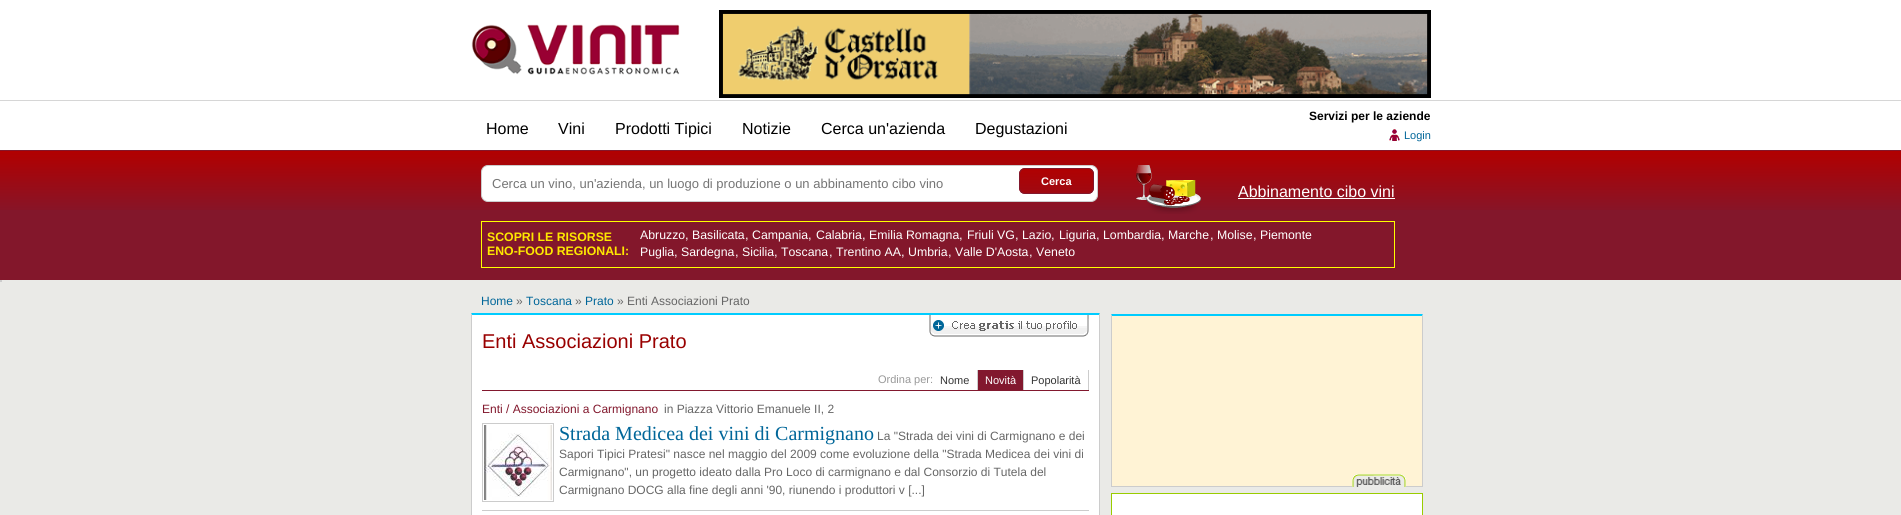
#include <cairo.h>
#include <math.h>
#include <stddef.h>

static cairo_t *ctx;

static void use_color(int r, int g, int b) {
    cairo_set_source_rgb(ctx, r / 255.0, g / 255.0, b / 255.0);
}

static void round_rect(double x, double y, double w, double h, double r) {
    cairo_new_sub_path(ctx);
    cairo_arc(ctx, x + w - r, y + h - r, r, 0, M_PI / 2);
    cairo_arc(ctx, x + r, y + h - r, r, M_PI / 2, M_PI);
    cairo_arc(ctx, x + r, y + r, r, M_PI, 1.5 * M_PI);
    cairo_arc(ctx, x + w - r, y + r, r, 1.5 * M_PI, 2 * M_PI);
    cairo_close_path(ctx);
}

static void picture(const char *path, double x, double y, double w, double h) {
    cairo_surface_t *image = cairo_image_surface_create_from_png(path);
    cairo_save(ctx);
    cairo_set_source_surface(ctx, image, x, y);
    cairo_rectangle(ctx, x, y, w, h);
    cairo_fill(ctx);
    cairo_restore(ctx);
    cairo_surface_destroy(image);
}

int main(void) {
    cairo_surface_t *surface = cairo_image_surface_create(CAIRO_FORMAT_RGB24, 1901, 515);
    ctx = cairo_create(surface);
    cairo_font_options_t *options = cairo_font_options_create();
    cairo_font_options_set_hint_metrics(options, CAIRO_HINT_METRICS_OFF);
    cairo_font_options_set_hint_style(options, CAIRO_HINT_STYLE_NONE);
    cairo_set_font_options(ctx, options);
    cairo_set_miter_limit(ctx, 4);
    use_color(234, 234, 231);
    cairo_paint(ctx);
    use_color(255, 255, 255);
    cairo_rectangle(ctx, 0, 0, 1901, 100);
    cairo_fill(ctx);
    picture("img1.png", 471, 24, 209, 51);
    picture("img2.png", 719, 10, 712, 88);
    picture("img4.png", 0, 100, 1901, 110);
    cairo_select_font_face(ctx, "Liberation Sans", CAIRO_FONT_SLANT_NORMAL, CAIRO_FONT_WEIGHT_BOLD);
    cairo_set_font_size(ctx, 12);
    use_color(0, 0, 0);
    cairo_move_to(ctx, 1309, 120);
    cairo_show_text(ctx, "Servizi per le aziende");
    picture("img3.png", 1389, 129, 11, 12);
    cairo_select_font_face(ctx, "Liberation Sans", CAIRO_FONT_SLANT_NORMAL, CAIRO_FONT_WEIGHT_NORMAL);
    cairo_set_font_size(ctx, 11);
    use_color(0, 102, 153);
    cairo_move_to(ctx, 1404, 139);
    cairo_show_text(ctx, "Login");
    use_color(131, 23, 43);
    cairo_rectangle(ctx, 0, 210, 1901, 70);
    cairo_fill(ctx);
    cairo_set_font_size(ctx, 16);
    use_color(0, 0, 0);
    cairo_move_to(ctx, 486, 134);
    cairo_show_text(ctx, "Home");
    cairo_move_to(ctx, 558, 134);
    cairo_show_text(ctx, "Vini");
    cairo_move_to(ctx, 615, 134);
    cairo_show_text(ctx, "Prodotti Tipici");
    cairo_move_to(ctx, 742, 134);
    cairo_show_text(ctx, "Notizie");
    cairo_move_to(ctx, 821, 134);
    cairo_show_text(ctx, "Cerca un'azienda");
    cairo_move_to(ctx, 975, 134);
    cairo_show_text(ctx, "Degustazioni");
    use_color(255, 255, 255);
    round_rect(481.5, 165.5, 616, 36, 6.5);
    cairo_fill_preserve(ctx);
    use_color(204, 204, 204);
    cairo_set_line_width(ctx, 1);
    cairo_stroke(ctx);
    cairo_set_font_size(ctx, 13);
    use_color(117, 117, 117);
    cairo_move_to(ctx, 492, 188);
    cairo_show_text(ctx, "Cerca un vino, un'azienda, un luogo di produzione o un abbinamento cibo vino");
    picture("img5.png", 1019, 168, 75, 26);
    round_rect(1019.5, 168.5, 74, 25, 5.5);
    use_color(130, 24, 45);
    cairo_stroke(ctx);
    cairo_select_font_face(ctx, "Liberation Sans", CAIRO_FONT_SLANT_NORMAL, CAIRO_FONT_WEIGHT_BOLD);
    cairo_set_font_size(ctx, 11);
    use_color(255, 255, 255);
    cairo_move_to(ctx, 1041, 185);
    cairo_show_text(ctx, "Cerca");
    picture("img6.png", 1136, 165, 65, 49);
    cairo_select_font_face(ctx, "Liberation Sans", CAIRO_FONT_SLANT_NORMAL, CAIRO_FONT_WEIGHT_NORMAL);
    cairo_set_font_size(ctx, 16);
    cairo_move_to(ctx, 1238, 197);
    cairo_show_text(ctx, "Abbinamento cibo vini");
    cairo_rectangle(ctx, 1238, 198, 157, 1);
    cairo_fill(ctx);
    cairo_rectangle(ctx, 481.5, 221.5, 913, 46);
    use_color(255, 255, 0);
    cairo_stroke(ctx);
    cairo_select_font_face(ctx, "Liberation Sans", CAIRO_FONT_SLANT_NORMAL, CAIRO_FONT_WEIGHT_BOLD);
    cairo_set_font_size(ctx, 12.3);
    use_color(254, 232, 0);
    cairo_move_to(ctx, 487, 241);
    cairo_show_text(ctx, "SCOPRI LE RISORSE");
    cairo_move_to(ctx, 487, 255);
    cairo_show_text(ctx, "ENO-FOOD REGIONALI:");
    cairo_select_font_face(ctx, "Liberation Sans", CAIRO_FONT_SLANT_NORMAL, CAIRO_FONT_WEIGHT_NORMAL);
    use_color(255, 255, 255);
    cairo_move_to(ctx, 640, 239);
    cairo_show_text(ctx, "Abruzzo");
    cairo_set_font_size(ctx, 13);
    cairo_move_to(ctx, 685, 239);
    cairo_show_text(ctx, ",");
    cairo_set_font_size(ctx, 12.3);
    cairo_move_to(ctx, 692, 239);
    cairo_show_text(ctx, "Basilicata");
    cairo_set_font_size(ctx, 13);
    cairo_move_to(ctx, 745, 239);
    cairo_show_text(ctx, ",");
    cairo_set_font_size(ctx, 12.3);
    cairo_move_to(ctx, 752, 239);
    cairo_show_text(ctx, "Campania");
    cairo_set_font_size(ctx, 13);
    cairo_move_to(ctx, 808, 239);
    cairo_show_text(ctx, ",");
    cairo_set_font_size(ctx, 12.3);
    cairo_move_to(ctx, 816, 239);
    cairo_show_text(ctx, "Calabria");
    cairo_set_font_size(ctx, 13);
    cairo_move_to(ctx, 862, 239);
    cairo_show_text(ctx, ",");
    cairo_set_font_size(ctx, 12.3);
    cairo_move_to(ctx, 869, 239);
    cairo_show_text(ctx, "Emilia Romagna");
    cairo_set_font_size(ctx, 13);
    cairo_move_to(ctx, 959, 239);
    cairo_show_text(ctx, ",");
    cairo_set_font_size(ctx, 12.3);
    cairo_move_to(ctx, 967, 239);
    cairo_show_text(ctx, "Friuli VG");
    cairo_set_font_size(ctx, 13);
    cairo_move_to(ctx, 1015, 239);
    cairo_show_text(ctx, ",");
    cairo_set_font_size(ctx, 12.3);
    cairo_move_to(ctx, 1022, 239);
    cairo_show_text(ctx, "Lazio");
    cairo_set_font_size(ctx, 13);
    cairo_move_to(ctx, 1051, 239);
    cairo_show_text(ctx, ",");
    cairo_set_font_size(ctx, 12.3);
    cairo_move_to(ctx, 1059, 239);
    cairo_show_text(ctx, "Liguria");
    cairo_set_font_size(ctx, 13);
    cairo_move_to(ctx, 1096, 239);
    cairo_show_text(ctx, ",");
    cairo_set_font_size(ctx, 12.3);
    cairo_move_to(ctx, 1103, 239);
    cairo_show_text(ctx, "Lombardia");
    cairo_set_font_size(ctx, 13);
    cairo_move_to(ctx, 1161, 239);
    cairo_show_text(ctx, ",");
    cairo_set_font_size(ctx, 12.3);
    cairo_move_to(ctx, 1168, 239);
    cairo_show_text(ctx, "Marche");
    cairo_set_font_size(ctx, 13);
    cairo_move_to(ctx, 1210, 239);
    cairo_show_text(ctx, ",");
    cairo_set_font_size(ctx, 12.3);
    cairo_move_to(ctx, 1217, 239);
    cairo_show_text(ctx, "Molise");
    cairo_set_font_size(ctx, 13);
    cairo_move_to(ctx, 1253, 239);
    cairo_show_text(ctx, ",");
    cairo_set_font_size(ctx, 12.3);
    cairo_move_to(ctx, 1260, 239);
    cairo_show_text(ctx, "Piemonte");
    cairo_move_to(ctx, 640, 256);
    cairo_show_text(ctx, "Puglia");
    cairo_set_font_size(ctx, 13);
    cairo_move_to(ctx, 674, 256);
    cairo_show_text(ctx, ",");
    cairo_set_font_size(ctx, 12.3);
    cairo_move_to(ctx, 681, 256);
    cairo_show_text(ctx, "Sardegna");
    cairo_set_font_size(ctx, 13);
    cairo_move_to(ctx, 735, 256);
    cairo_show_text(ctx, ",");
    cairo_set_font_size(ctx, 12.3);
    cairo_move_to(ctx, 742, 256);
    cairo_show_text(ctx, "Sicilia");
    cairo_set_font_size(ctx, 13);
    cairo_move_to(ctx, 774, 256);
    cairo_show_text(ctx, ",");
    cairo_set_font_size(ctx, 12.3);
    cairo_move_to(ctx, 781, 256);
    cairo_show_text(ctx, "Toscana");
    cairo_set_font_size(ctx, 13);
    cairo_move_to(ctx, 829, 256);
    cairo_show_text(ctx, ",");
    cairo_set_font_size(ctx, 12.3);
    cairo_move_to(ctx, 836, 256);
    cairo_show_text(ctx, "Trentino AA");
    cairo_set_font_size(ctx, 13);
    cairo_move_to(ctx, 901, 256);
    cairo_show_text(ctx, ",");
    cairo_set_font_size(ctx, 12.3);
    cairo_move_to(ctx, 908, 256);
    cairo_show_text(ctx, "Umbria");
    cairo_set_font_size(ctx, 13);
    cairo_move_to(ctx, 948, 256);
    cairo_show_text(ctx, ",");
    cairo_set_font_size(ctx, 12.3);
    cairo_move_to(ctx, 955, 256);
    cairo_show_text(ctx, "Valle D'Aosta");
    cairo_set_font_size(ctx, 13);
    cairo_move_to(ctx, 1029, 256);
    cairo_show_text(ctx, ",");
    cairo_set_font_size(ctx, 12.3);
    cairo_move_to(ctx, 1036, 256);
    cairo_show_text(ctx, "Veneto");
    use_color(204, 204, 204);
    cairo_rectangle(ctx, 0, 280, 2, 2);
    cairo_fill(ctx);
    cairo_set_font_size(ctx, 12);
    use_color(0, 102, 153);
    cairo_move_to(ctx, 481, 305);
    cairo_show_text(ctx, "Home");
    use_color(102, 102, 102);
    cairo_move_to(ctx, 516, 305);
    cairo_show_text(ctx, "»");
    use_color(0, 102, 153);
    cairo_move_to(ctx, 526, 305);
    cairo_show_text(ctx, "Toscana");
    use_color(102, 102, 102);
    cairo_move_to(ctx, 575, 305);
    cairo_show_text(ctx, "»");
    use_color(0, 102, 153);
    cairo_move_to(ctx, 585, 305);
    cairo_show_text(ctx, "Prato");
    use_color(102, 102, 102);
    cairo_move_to(ctx, 617, 305);
    cairo_show_text(ctx, "» Enti Associazioni Prato");
    use_color(255, 255, 255);
    cairo_rectangle(ctx, 472, 315, 627, 200);
    cairo_fill(ctx);
    use_color(0, 204, 255);
    cairo_new_path(ctx);
    cairo_move_to(ctx, 471, 313);
    cairo_line_to(ctx, 1100, 313);
    cairo_line_to(ctx, 1099, 315);
    cairo_line_to(ctx, 472, 315);
    cairo_close_path(ctx);
    cairo_fill(ctx);
    use_color(204, 204, 204);
    cairo_new_path(ctx);
    cairo_move_to(ctx, 1100, 313);
    cairo_line_to(ctx, 1100, 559);
    cairo_line_to(ctx, 1099, 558);
    cairo_line_to(ctx, 1099, 315);
    cairo_close_path(ctx);
    cairo_fill(ctx);
    cairo_new_path(ctx);
    cairo_move_to(ctx, 471, 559);
    cairo_line_to(ctx, 471, 313);
    cairo_line_to(ctx, 472, 315);
    cairo_line_to(ctx, 472, 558);
    cairo_close_path(ctx);
    cairo_fill(ctx);
    picture("img7.png", 929, 315, 160, 22);
    cairo_set_font_size(ctx, 20);
    use_color(153, 0, 0);
    cairo_move_to(ctx, 482, 348);
    cairo_show_text(ctx, "Enti Associazioni Prato");
    use_color(130, 24, 46);
    cairo_rectangle(ctx, 482, 390, 607, 1);
    cairo_fill(ctx);
    cairo_set_font_size(ctx, 11);
    use_color(153, 153, 153);
    cairo_move_to(ctx, 878, 383);
    cairo_show_text(ctx, "Ordina per:");
    use_color(204, 204, 204);
    cairo_rectangle(ctx, 977, 370, 1, 20);
    cairo_fill(ctx);
    use_color(51, 51, 51);
    cairo_move_to(ctx, 940, 384);
    cairo_show_text(ctx, "Nome");
    use_color(130, 24, 46);
    cairo_rectangle(ctx, 978, 370, 45, 20);
    cairo_fill(ctx);
    use_color(204, 204, 204);
    cairo_rectangle(ctx, 1023, 370, 1, 20);
    cairo_fill(ctx);
    use_color(255, 255, 255);
    cairo_move_to(ctx, 985, 384);
    cairo_show_text(ctx, "Novità");
    use_color(204, 204, 204);
    cairo_rectangle(ctx, 1088, 370, 1, 20);
    cairo_fill(ctx);
    use_color(51, 51, 51);
    cairo_move_to(ctx, 1031, 384);
    cairo_show_text(ctx, "Popolarità");
    use_color(204, 204, 204);
    cairo_rectangle(ctx, 482, 510, 607, 1);
    cairo_fill(ctx);
    cairo_set_font_size(ctx, 12);
    use_color(130, 24, 45);
    cairo_move_to(ctx, 482, 413);
    cairo_show_text(ctx, "Enti / Associazioni a Carmignano");
    use_color(102, 102, 102);
    cairo_move_to(ctx, 664, 413);
    cairo_show_text(ctx, "in Piazza Vittorio Emanuele II, 2");
    cairo_rectangle(ctx, 482.5, 423.5, 71, 78);
    use_color(204, 204, 204);
    cairo_stroke(ctx);
    picture("img8.png", 484, 425, 68, 75);
    cairo_select_font_face(ctx, "Liberation Serif", CAIRO_FONT_SLANT_NORMAL, CAIRO_FONT_WEIGHT_NORMAL);
    cairo_set_font_size(ctx, 20);
    use_color(0, 102, 153);
    cairo_move_to(ctx, 559, 440);
    cairo_show_text(ctx, "Strada Medicea dei vini di Carmignano");
    cairo_select_font_face(ctx, "Liberation Sans", CAIRO_FONT_SLANT_NORMAL, CAIRO_FONT_WEIGHT_NORMAL);
    cairo_set_font_size(ctx, 12);
    use_color(102, 102, 102);
    cairo_move_to(ctx, 877, 440);
    cairo_show_text(ctx, "La \"Strada dei vini di Carmignano e dei");
    cairo_move_to(ctx, 559, 458);
    cairo_show_text(ctx, "Sapori Tipici Pratesi\" nasce nel maggio del 2009 come evoluzione della \"Strada Medicea dei vini di");
    cairo_move_to(ctx, 559, 476);
    cairo_show_text(ctx, "Carmignano\", un progetto ideato dalla Pro Loco di carmignano e dal Consorzio di Tutela del");
    cairo_move_to(ctx, 559, 494);
    cairo_show_text(ctx, "Carmignano DOCG alla fine degli anni '90, riunendo i produttori v [...]");
    use_color(255, 243, 213);
    cairo_rectangle(ctx, 1112, 316, 310, 170);
    cairo_fill(ctx);
    use_color(0, 204, 255);
    cairo_new_path(ctx);
    cairo_move_to(ctx, 1111, 314);
    cairo_line_to(ctx, 1423, 314);
    cairo_line_to(ctx, 1422, 316);
    cairo_line_to(ctx, 1112, 316);
    cairo_close_path(ctx);
    cairo_fill(ctx);
    use_color(204, 204, 204);
    cairo_new_path(ctx);
    cairo_move_to(ctx, 1423, 314);
    cairo_line_to(ctx, 1423, 487);
    cairo_line_to(ctx, 1422, 486);
    cairo_line_to(ctx, 1422, 316);
    cairo_close_path(ctx);
    cairo_fill(ctx);
    cairo_rectangle(ctx, 1111, 486, 312, 1);
    cairo_fill(ctx);
    cairo_new_path(ctx);
    cairo_move_to(ctx, 1111, 487);
    cairo_line_to(ctx, 1111, 314);
    cairo_line_to(ctx, 1112, 316);
    cairo_line_to(ctx, 1112, 486);
    cairo_close_path(ctx);
    cairo_fill(ctx);
    picture("img9.png", 1352, 474, 54, 13);
    use_color(255, 255, 255);
    cairo_rectangle(ctx, 1111.5, 493.5, 311, 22);
    cairo_fill_preserve(ctx);
    use_color(153, 204, 0);
    cairo_stroke(ctx);
    cairo_surface_write_to_png(surface, "result.png");
    cairo_font_options_destroy(options);
    cairo_destroy(ctx);
    cairo_surface_destroy(surface);
    return 0;
}
